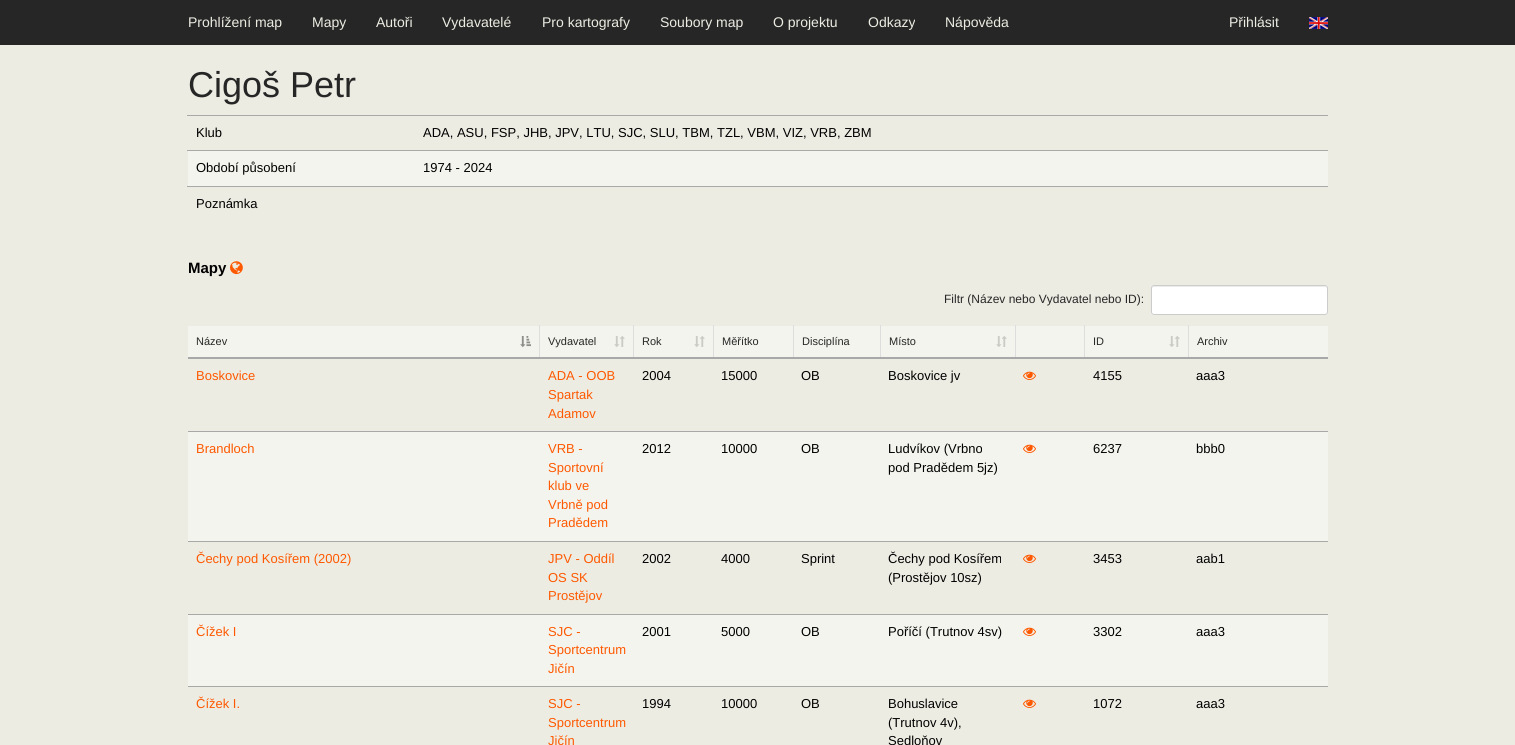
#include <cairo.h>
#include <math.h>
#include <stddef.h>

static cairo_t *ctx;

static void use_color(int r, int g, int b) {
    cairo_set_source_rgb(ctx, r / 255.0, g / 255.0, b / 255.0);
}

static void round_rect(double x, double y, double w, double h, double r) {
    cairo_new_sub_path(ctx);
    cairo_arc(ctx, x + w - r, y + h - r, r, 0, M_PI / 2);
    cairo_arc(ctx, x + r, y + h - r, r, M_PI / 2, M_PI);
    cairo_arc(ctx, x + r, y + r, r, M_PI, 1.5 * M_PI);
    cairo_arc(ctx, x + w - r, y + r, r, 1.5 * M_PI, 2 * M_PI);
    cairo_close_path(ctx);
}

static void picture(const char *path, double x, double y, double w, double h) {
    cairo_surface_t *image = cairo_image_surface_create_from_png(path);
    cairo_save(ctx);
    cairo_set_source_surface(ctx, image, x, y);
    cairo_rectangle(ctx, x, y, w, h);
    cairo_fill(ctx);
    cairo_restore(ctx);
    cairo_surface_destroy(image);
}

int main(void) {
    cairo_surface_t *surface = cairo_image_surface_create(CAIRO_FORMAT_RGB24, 1515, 745);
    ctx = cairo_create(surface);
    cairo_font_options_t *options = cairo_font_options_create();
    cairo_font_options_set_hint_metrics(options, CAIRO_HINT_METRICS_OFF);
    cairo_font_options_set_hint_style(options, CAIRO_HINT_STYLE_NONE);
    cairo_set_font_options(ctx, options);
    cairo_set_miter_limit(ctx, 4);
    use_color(237, 236, 227);
    cairo_paint(ctx);
    use_color(38, 38, 38);
    cairo_rectangle(ctx, 0, 0, 1515, 45);
    cairo_fill(ctx);
    cairo_select_font_face(ctx, "Liberation Sans", CAIRO_FONT_SLANT_NORMAL, CAIRO_FONT_WEIGHT_NORMAL);
    cairo_set_font_size(ctx, 14);
    use_color(237, 236, 227);
    cairo_move_to(ctx, 188, 27);
    cairo_show_text(ctx, "Prohlížení map");
    cairo_move_to(ctx, 312, 27);
    cairo_show_text(ctx, "Mapy");
    cairo_move_to(ctx, 376, 27);
    cairo_show_text(ctx, "Autoři");
    cairo_move_to(ctx, 442, 27);
    cairo_show_text(ctx, "Vydavatelé");
    cairo_move_to(ctx, 542, 27);
    cairo_show_text(ctx, "Pro kartografy");
    cairo_move_to(ctx, 660, 27);
    cairo_show_text(ctx, "Soubory map");
    cairo_move_to(ctx, 773, 27);
    cairo_show_text(ctx, "O projektu");
    cairo_move_to(ctx, 868, 27);
    cairo_show_text(ctx, "Odkazy");
    cairo_move_to(ctx, 945, 27);
    cairo_show_text(ctx, "Nápověda");
    cairo_move_to(ctx, 1229, 27);
    cairo_show_text(ctx, "Přihlásit");
    picture("img1.png", 1309, 17, 19, 12);
    cairo_set_font_size(ctx, 36);
    use_color(38, 38, 38);
    cairo_move_to(ctx, 188, 97);
    cairo_show_text(ctx, "Cigoš Petr");
    use_color(244, 244, 238);
    cairo_rectangle(ctx, 188, 151, 1140, 35);
    cairo_fill(ctx);
    cairo_set_font_size(ctx, 13);
    use_color(0, 0, 0);
    cairo_move_to(ctx, 196, 137);
    cairo_show_text(ctx, "Klub");
    use_color(168, 168, 168);
    cairo_rectangle(ctx, 187, 115, 1141, 1);
    cairo_fill(ctx);
    use_color(0, 0, 0);
    cairo_move_to(ctx, 423, 137);
    cairo_show_text(ctx, "ADA, ASU, FSP, JHB, JPV, LTU, SJC, SLU, TBM, TZL, VBM, VIZ, VRB, ZBM");
    cairo_move_to(ctx, 196, 172);
    cairo_show_text(ctx, "Období působení");
    use_color(168, 168, 168);
    cairo_rectangle(ctx, 187, 150, 1141, 1);
    cairo_fill(ctx);
    use_color(0, 0, 0);
    cairo_move_to(ctx, 423, 172);
    cairo_show_text(ctx, "1974 - 2024");
    use_color(168, 168, 168);
    cairo_rectangle(ctx, 187, 186, 1141, 1);
    cairo_fill(ctx);
    use_color(0, 0, 0);
    cairo_move_to(ctx, 196, 208);
    cairo_show_text(ctx, "Poznámka");
    cairo_select_font_face(ctx, "Liberation Sans", CAIRO_FONT_SLANT_NORMAL, CAIRO_FONT_WEIGHT_BOLD);
    cairo_set_font_size(ctx, 15);
    cairo_move_to(ctx, 188, 273);
    cairo_show_text(ctx, "Mapy");
    picture("img2.png", 230, 261, 13, 14);
    cairo_select_font_face(ctx, "Liberation Sans", CAIRO_FONT_SLANT_NORMAL, CAIRO_FONT_WEIGHT_NORMAL);
    cairo_set_font_size(ctx, 12);
    use_color(38, 38, 38);
    cairo_move_to(ctx, 944, 303);
    cairo_show_text(ctx, "Filtr (Název nebo Vydavatel nebo ID):");
    use_color(255, 255, 255);
    round_rect(1151, 285, 177, 30, 3);
    cairo_fill(ctx);
    use_color(236, 236, 236);
    cairo_new_path(ctx);
    cairo_move_to(ctx, 1154, 287);
    cairo_line_to(ctx, 1325, 287);
    cairo_curve_to(ctx, 1326, 287, 1327, 288, 1327, 289);
    cairo_curve_to(ctx, 1327, 288, 1327, 286, 1325, 286);
    cairo_line_to(ctx, 1154, 286);
    cairo_curve_to(ctx, 1152, 286, 1152, 288, 1152, 289);
    cairo_curve_to(ctx, 1152, 288, 1153, 287, 1154, 287);
    cairo_close_path(ctx);
    cairo_fill(ctx);
    round_rect(1151.5, 285.5, 176, 29, 2.5);
    use_color(204, 204, 204);
    cairo_set_line_width(ctx, 1);
    cairo_stroke(ctx);
    use_color(244, 244, 238);
    cairo_rectangle(ctx, 188, 326, 1140, 360);
    cairo_fill(ctx);
    cairo_set_font_size(ctx, 11);
    use_color(38, 38, 38);
    cairo_move_to(ctx, 196, 345);
    cairo_show_text(ctx, "Název");
    picture("img3.png", 520, 336, 11, 11);
    use_color(221, 221, 221);
    cairo_rectangle(ctx, 539, 325, 1, 34);
    cairo_fill(ctx);
    use_color(38, 38, 38);
    cairo_move_to(ctx, 548, 345);
    cairo_show_text(ctx, "Vydavatel");
    picture("img4.png", 614, 336, 11, 11);
    use_color(221, 221, 221);
    cairo_rectangle(ctx, 633, 325, 1, 34);
    cairo_fill(ctx);
    use_color(38, 38, 38);
    cairo_move_to(ctx, 642, 345);
    cairo_show_text(ctx, "Rok");
    picture("img4.png", 694, 336, 11, 11);
    use_color(221, 221, 221);
    cairo_rectangle(ctx, 713, 325, 1, 34);
    cairo_fill(ctx);
    use_color(38, 38, 38);
    cairo_move_to(ctx, 722, 345);
    cairo_show_text(ctx, "Měřítko");
    use_color(221, 221, 221);
    cairo_rectangle(ctx, 793, 325, 1, 34);
    cairo_fill(ctx);
    use_color(38, 38, 38);
    cairo_move_to(ctx, 802, 345);
    cairo_show_text(ctx, "Disciplína");
    use_color(221, 221, 221);
    cairo_rectangle(ctx, 880, 325, 1, 34);
    cairo_fill(ctx);
    use_color(38, 38, 38);
    cairo_move_to(ctx, 889, 345);
    cairo_show_text(ctx, "Místo");
    picture("img4.png", 996, 336, 11, 11);
    use_color(221, 221, 221);
    cairo_rectangle(ctx, 1015, 325, 1, 34);
    cairo_fill(ctx);
    cairo_rectangle(ctx, 1084, 325, 1, 34);
    cairo_fill(ctx);
    use_color(38, 38, 38);
    cairo_move_to(ctx, 1093, 345);
    cairo_show_text(ctx, "ID");
    picture("img4.png", 1169, 336, 11, 11);
    use_color(221, 221, 221);
    cairo_rectangle(ctx, 1188, 325, 1, 34);
    cairo_fill(ctx);
    use_color(168, 168, 168);
    cairo_rectangle(ctx, 188, 357, 1140, 2);
    cairo_fill(ctx);
    use_color(38, 38, 38);
    cairo_move_to(ctx, 1197, 345);
    cairo_show_text(ctx, "Archiv");
    use_color(237, 236, 227);
    cairo_rectangle(ctx, 188, 359, 1140, 72);
    cairo_fill(ctx);
    cairo_set_font_size(ctx, 13);
    use_color(254, 89, 0);
    cairo_move_to(ctx, 196, 380);
    cairo_show_text(ctx, "Boskovice");
    cairo_move_to(ctx, 548, 380);
    cairo_show_text(ctx, "ADA - OOB");
    cairo_move_to(ctx, 548, 399);
    cairo_show_text(ctx, "Spartak");
    cairo_move_to(ctx, 548, 418);
    cairo_show_text(ctx, "Adamov");
    use_color(0, 0, 0);
    cairo_move_to(ctx, 642, 380);
    cairo_show_text(ctx, "2004");
    cairo_move_to(ctx, 721, 380);
    cairo_show_text(ctx, "15000");
    cairo_move_to(ctx, 801, 380);
    cairo_show_text(ctx, "OB");
    cairo_move_to(ctx, 888, 380);
    cairo_show_text(ctx, "Boskovice jv");
    picture("img5.png", 1023, 371, 13, 9);
    cairo_move_to(ctx, 1093, 380);
    cairo_show_text(ctx, "4155");
    cairo_move_to(ctx, 1196, 380);
    cairo_show_text(ctx, "aaa3");
    use_color(254, 89, 0);
    cairo_move_to(ctx, 196, 453);
    cairo_show_text(ctx, "Brandloch");
    cairo_move_to(ctx, 548, 453);
    cairo_show_text(ctx, "VRB -");
    cairo_move_to(ctx, 548, 472);
    cairo_show_text(ctx, "Sportovní");
    cairo_move_to(ctx, 548, 490);
    cairo_show_text(ctx, "klub ve");
    cairo_move_to(ctx, 548, 509);
    cairo_show_text(ctx, "Vrbně pod");
    cairo_move_to(ctx, 548, 527);
    cairo_show_text(ctx, "Pradědem");
    use_color(0, 0, 0);
    cairo_move_to(ctx, 642, 453);
    cairo_show_text(ctx, "2012");
    cairo_move_to(ctx, 721, 453);
    cairo_show_text(ctx, "10000");
    cairo_move_to(ctx, 801, 453);
    cairo_show_text(ctx, "OB");
    cairo_move_to(ctx, 888, 453);
    cairo_show_text(ctx, "Ludvíkov (Vrbno");
    cairo_move_to(ctx, 888, 472);
    cairo_show_text(ctx, "pod Pradědem 5jz)");
    picture("img6.png", 1023, 444, 13, 9);
    cairo_move_to(ctx, 1093, 453);
    cairo_show_text(ctx, "6237");
    use_color(168, 168, 168);
    cairo_rectangle(ctx, 188, 431, 1140, 1);
    cairo_fill(ctx);
    use_color(0, 0, 0);
    cairo_move_to(ctx, 1196, 453);
    cairo_show_text(ctx, "bbb0");
    use_color(237, 236, 227);
    cairo_rectangle(ctx, 188, 542, 1140, 72);
    cairo_fill(ctx);
    use_color(254, 89, 0);
    cairo_move_to(ctx, 196, 563);
    cairo_show_text(ctx, "Čechy pod Kosířem (2002)");
    cairo_move_to(ctx, 548, 563);
    cairo_show_text(ctx, "JPV - Oddíl");
    cairo_move_to(ctx, 548, 582);
    cairo_show_text(ctx, "OS SK");
    cairo_move_to(ctx, 548, 600);
    cairo_show_text(ctx, "Prostějov");
    use_color(0, 0, 0);
    cairo_move_to(ctx, 642, 563);
    cairo_show_text(ctx, "2002");
    cairo_move_to(ctx, 721, 563);
    cairo_show_text(ctx, "4000");
    cairo_move_to(ctx, 801, 563);
    cairo_show_text(ctx, "Sprint");
    cairo_move_to(ctx, 888, 563);
    cairo_show_text(ctx, "Čechy pod Kosířem");
    cairo_move_to(ctx, 888, 582);
    cairo_show_text(ctx, "(Prostějov 10sz)");
    picture("img5.png", 1023, 554, 13, 9);
    cairo_move_to(ctx, 1093, 563);
    cairo_show_text(ctx, "3453");
    use_color(168, 168, 168);
    cairo_rectangle(ctx, 188, 541, 1140, 1);
    cairo_fill(ctx);
    use_color(0, 0, 0);
    cairo_move_to(ctx, 1196, 563);
    cairo_show_text(ctx, "aab1");
    use_color(254, 89, 0);
    cairo_move_to(ctx, 196, 636);
    cairo_show_text(ctx, "Čížek I");
    cairo_move_to(ctx, 548, 636);
    cairo_show_text(ctx, "SJC -");
    cairo_move_to(ctx, 548, 654);
    cairo_show_text(ctx, "Sportcentrum");
    cairo_move_to(ctx, 548, 673);
    cairo_show_text(ctx, "Jičín");
    use_color(0, 0, 0);
    cairo_move_to(ctx, 642, 636);
    cairo_show_text(ctx, "2001");
    cairo_move_to(ctx, 721, 636);
    cairo_show_text(ctx, "5000");
    cairo_move_to(ctx, 801, 636);
    cairo_show_text(ctx, "OB");
    cairo_move_to(ctx, 888, 636);
    cairo_show_text(ctx, "Poříčí (Trutnov 4sv)");
    picture("img6.png", 1023, 627, 13, 9);
    cairo_move_to(ctx, 1093, 636);
    cairo_show_text(ctx, "3302");
    use_color(168, 168, 168);
    cairo_rectangle(ctx, 188, 614, 1140, 1);
    cairo_fill(ctx);
    use_color(0, 0, 0);
    cairo_move_to(ctx, 1196, 636);
    cairo_show_text(ctx, "aaa3");
    use_color(254, 89, 0);
    cairo_move_to(ctx, 196, 708);
    cairo_show_text(ctx, "Čížek I.");
    cairo_move_to(ctx, 548, 708);
    cairo_show_text(ctx, "SJC -");
    cairo_move_to(ctx, 548, 727);
    cairo_show_text(ctx, "Sportcentrum");
    cairo_move_to(ctx, 548, 745);
    cairo_show_text(ctx, "Jičín");
    use_color(0, 0, 0);
    cairo_move_to(ctx, 642, 708);
    cairo_show_text(ctx, "1994");
    cairo_move_to(ctx, 721, 708);
    cairo_show_text(ctx, "10000");
    cairo_move_to(ctx, 801, 708);
    cairo_show_text(ctx, "OB");
    cairo_move_to(ctx, 888, 708);
    cairo_show_text(ctx, "Bohuslavice");
    cairo_move_to(ctx, 888, 727);
    cairo_show_text(ctx, "(Trutnov 4v),");
    cairo_move_to(ctx, 888, 745);
    cairo_show_text(ctx, "Sedloňov");
    picture("img5.png", 1023, 699, 13, 9);
    cairo_move_to(ctx, 1093, 708);
    cairo_show_text(ctx, "1072");
    use_color(168, 168, 168);
    cairo_rectangle(ctx, 188, 686, 1140, 1);
    cairo_fill(ctx);
    use_color(0, 0, 0);
    cairo_move_to(ctx, 1196, 708);
    cairo_show_text(ctx, "aaa3");
    cairo_surface_write_to_png(surface, "result.png");
    cairo_font_options_destroy(options);
    cairo_destroy(ctx);
    cairo_surface_destroy(surface);
    return 0;
}
